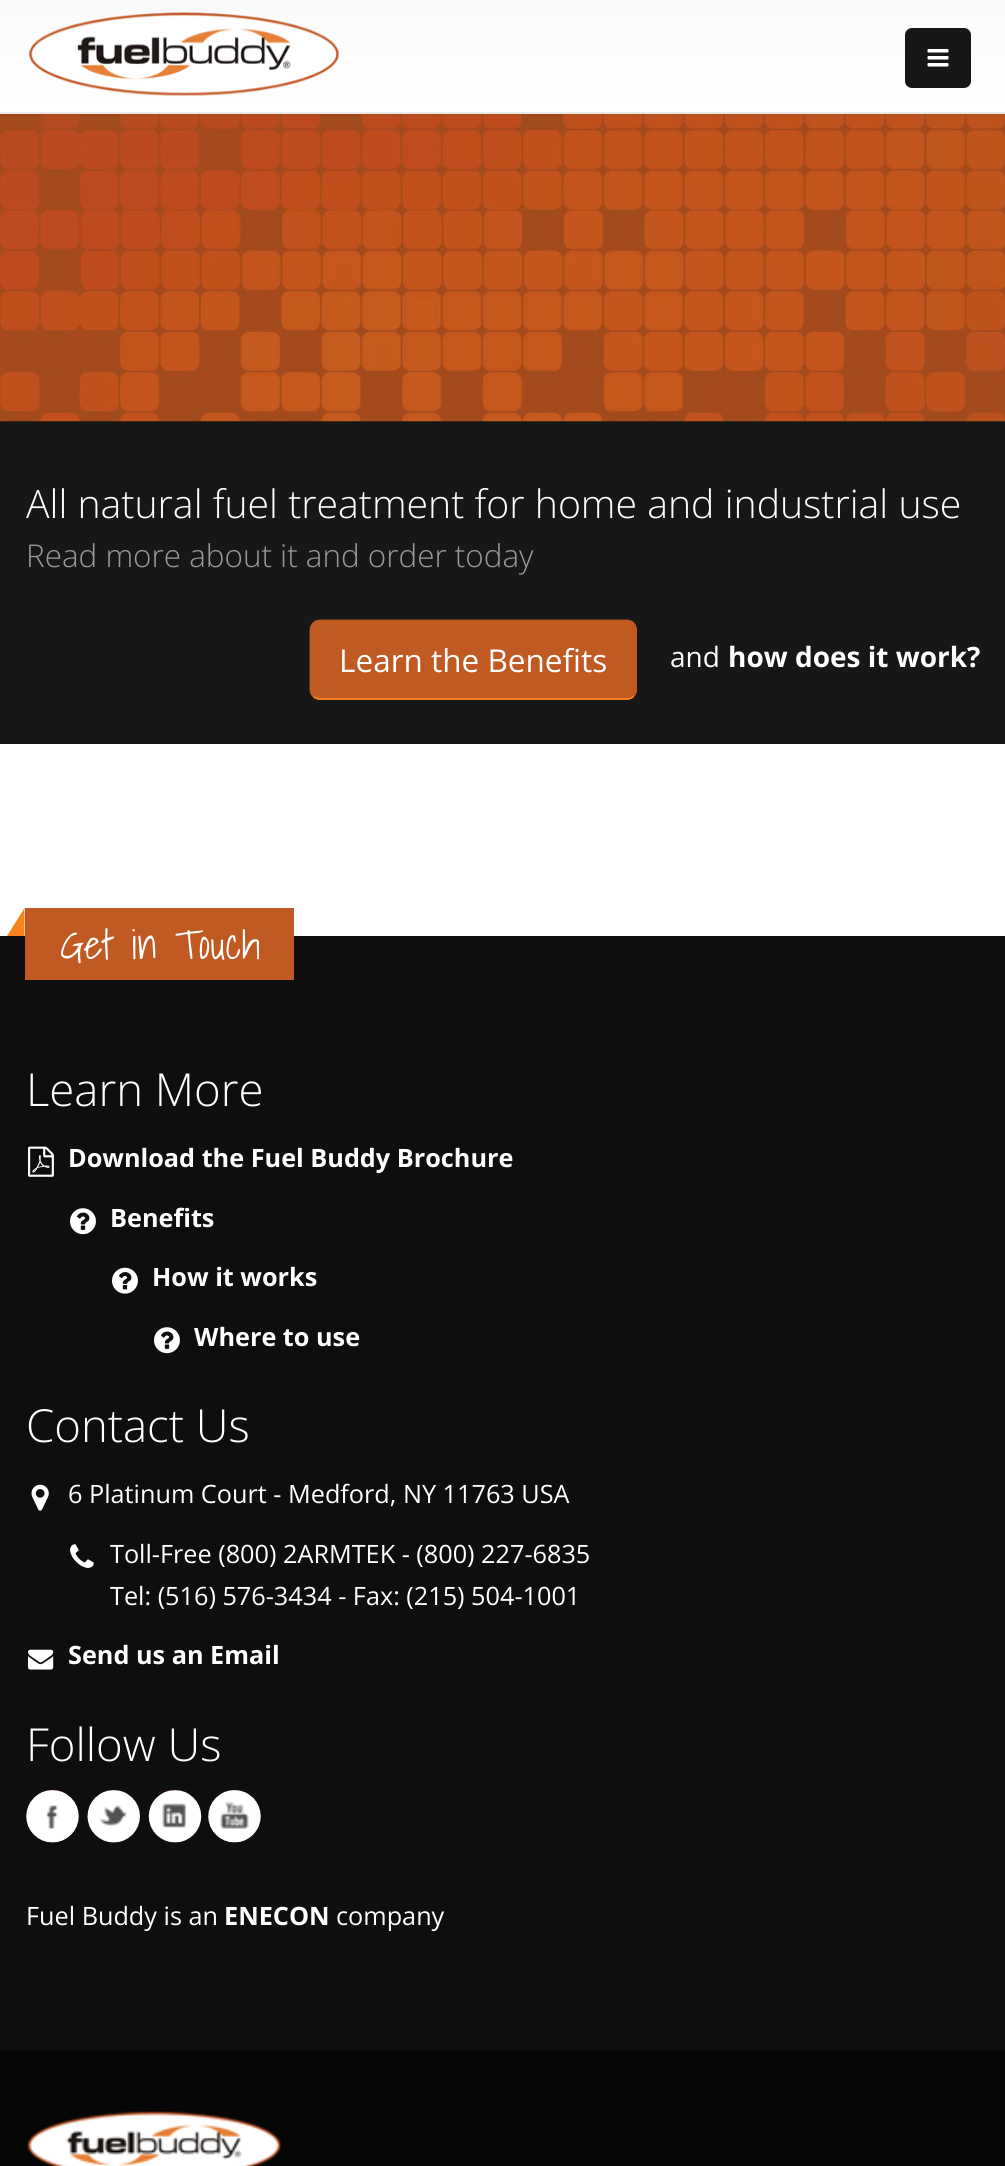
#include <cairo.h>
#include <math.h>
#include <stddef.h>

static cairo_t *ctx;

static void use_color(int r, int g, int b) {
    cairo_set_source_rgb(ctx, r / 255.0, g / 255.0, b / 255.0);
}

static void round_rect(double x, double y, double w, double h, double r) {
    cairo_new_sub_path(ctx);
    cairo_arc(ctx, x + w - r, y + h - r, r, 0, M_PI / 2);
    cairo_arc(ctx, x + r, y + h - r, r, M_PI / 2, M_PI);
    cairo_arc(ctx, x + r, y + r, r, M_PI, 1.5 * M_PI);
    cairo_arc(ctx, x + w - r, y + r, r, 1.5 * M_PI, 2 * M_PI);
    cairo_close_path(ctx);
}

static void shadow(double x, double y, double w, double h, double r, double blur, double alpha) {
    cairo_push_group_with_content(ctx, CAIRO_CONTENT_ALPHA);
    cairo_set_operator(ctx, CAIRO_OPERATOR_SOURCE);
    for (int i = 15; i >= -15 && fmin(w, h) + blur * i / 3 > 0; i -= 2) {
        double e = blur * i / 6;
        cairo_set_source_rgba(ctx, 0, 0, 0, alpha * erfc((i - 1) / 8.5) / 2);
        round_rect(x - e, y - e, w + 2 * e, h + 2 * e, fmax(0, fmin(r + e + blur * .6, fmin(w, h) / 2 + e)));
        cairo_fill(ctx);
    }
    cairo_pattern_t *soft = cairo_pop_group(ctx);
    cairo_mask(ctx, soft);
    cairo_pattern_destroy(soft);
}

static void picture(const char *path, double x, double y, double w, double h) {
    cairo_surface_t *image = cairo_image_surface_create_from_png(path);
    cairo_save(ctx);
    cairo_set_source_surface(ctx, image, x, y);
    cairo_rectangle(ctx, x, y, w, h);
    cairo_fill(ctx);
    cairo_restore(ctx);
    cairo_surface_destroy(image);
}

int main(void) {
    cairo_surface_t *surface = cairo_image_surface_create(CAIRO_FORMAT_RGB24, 1005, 2166);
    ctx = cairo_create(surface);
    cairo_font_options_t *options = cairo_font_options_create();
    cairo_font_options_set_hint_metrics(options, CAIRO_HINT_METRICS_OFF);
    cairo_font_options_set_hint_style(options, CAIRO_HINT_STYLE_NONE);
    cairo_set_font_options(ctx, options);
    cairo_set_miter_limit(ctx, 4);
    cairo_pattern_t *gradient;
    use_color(255, 255, 255);
    cairo_paint(ctx);
    use_color(23, 23, 23);
    cairo_rectangle(ctx, 0, 421, 1005, 323);
    cairo_fill(ctx);
    picture("img3.png", 0, 114, 1005, 308);
    use_color(0, 0, 0);
    shadow(0, -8, 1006, 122, 0, 2.5, 0.1);
    gradient = cairo_pattern_create_linear(503, -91, 503, 112);
    cairo_pattern_add_color_stop_rgba(gradient, 0, 0.965, 0.965, 0.965, 1);
    cairo_pattern_add_color_stop_rgba(gradient, 1, 1, 1, 1, 1);
    cairo_set_source(ctx, gradient);
    cairo_pattern_destroy(gradient);
    cairo_rectangle(ctx, 0, 0, 1005, 112);
    cairo_fill(ctx);
    use_color(233, 233, 233);
    cairo_rectangle(ctx, 0, 112, 1005, 2);
    cairo_fill(ctx);
    picture("img1.png", 28, 12, 311, 84);
    use_color(23, 23, 23);
    round_rect(905, 28, 66, 60, 7);
    cairo_fill(ctx);
    picture("img2.png", 927, 49, 22, 18);
    cairo_select_font_face(ctx, "Open Sans Light", CAIRO_FONT_SLANT_NORMAL, CAIRO_FONT_WEIGHT_NORMAL);
    cairo_set_font_size(ctx, 39.2);
    use_color(255, 255, 255);
    cairo_move_to(ctx, 26, 518);
    cairo_show_text(ctx, "All natural fuel treatment for home and industrial use");
    cairo_set_font_size(ctx, 31.4);
    use_color(153, 153, 153);
    cairo_move_to(ctx, 26, 567);
    cairo_show_text(ctx, "Read more about it and order today");
    use_color(193, 89, 34);
    round_rect(310, 620, 327, 80, 11);
    cairo_fill(ctx);
    cairo_new_path(ctx);
    cairo_move_to(ctx, 633.5, 696.5);
    cairo_curve_to(ctx, 631.5, 698, 629, 699, 626.5, 699);
    cairo_line_to(ctx, 320, 699);
    cairo_curve_to(ctx, 317.5, 699, 315, 698, 313.5, 696.5);
    use_color(249, 130, 30);
    cairo_set_line_width(ctx, 1.8);
    cairo_stroke(ctx);
    cairo_new_path(ctx);
    cairo_move_to(ctx, 313.5, 696.5);
    cairo_curve_to(ctx, 311.5, 694.5, 310.5, 692, 310.5, 689.5);
    cairo_line_to(ctx, 310.5, 630);
    cairo_curve_to(ctx, 310.5, 627.5, 311.5, 625, 313.5, 623);
    cairo_curve_to(ctx, 315, 621.5, 317.5, 620.5, 320, 620.5);
    cairo_line_to(ctx, 626.5, 620.5);
    cairo_curve_to(ctx, 629, 620.5, 631.5, 621.5, 633.5, 623);
    cairo_curve_to(ctx, 635, 625, 636, 627.5, 636, 630);
    cairo_line_to(ctx, 636, 689.5);
    cairo_curve_to(ctx, 636, 692, 635, 694.5, 633.5, 696.5);
    use_color(193, 89, 34);
    cairo_stroke(ctx);
    cairo_select_font_face(ctx, "Open Sans", CAIRO_FONT_SLANT_NORMAL, CAIRO_FONT_WEIGHT_NORMAL);
    cairo_set_font_size(ctx, 31.5);
    use_color(255, 255, 255);
    cairo_move_to(ctx, 339, 672);
    cairo_show_text(ctx, "Learn the Benefits");
    cairo_set_font_size(ctx, 28);
    cairo_move_to(ctx, 670, 667);
    cairo_show_text(ctx, "and");
    cairo_select_font_face(ctx, "Open Sans", CAIRO_FONT_SLANT_NORMAL, CAIRO_FONT_WEIGHT_BOLD);
    cairo_move_to(ctx, 728, 667);
    cairo_show_text(ctx, "how does it work?");
    use_color(14, 14, 14);
    cairo_rectangle(ctx, 0, 936, 1005, 1115);
    cairo_fill(ctx);
    use_color(193, 89, 34);
    cairo_rectangle(ctx, 25, 908, 269, 72);
    cairo_fill(ctx);
    use_color(249, 130, 30);
    cairo_new_path(ctx);
    cairo_move_to(ctx, 24.5, 908);
    cairo_line_to(ctx, 24.5, 936);
    cairo_line_to(ctx, 7, 936);
    cairo_close_path(ctx);
    cairo_fill(ctx);
    cairo_select_font_face(ctx, "Shadows Into Light", CAIRO_FONT_SLANT_NORMAL, CAIRO_FONT_WEIGHT_NORMAL);
    cairo_set_font_size(ctx, 40.5);
    use_color(255, 255, 255);
    cairo_move_to(ctx, 60, 959);
    cairo_show_text(ctx, "Get in Touch");
    cairo_select_font_face(ctx, "Open Sans Light", CAIRO_FONT_SLANT_NORMAL, CAIRO_FONT_WEIGHT_NORMAL);
    cairo_set_font_size(ctx, 45.5);
    cairo_move_to(ctx, 26, 1106);
    cairo_show_text(ctx, "Learn More");
    picture("img4.png", 28, 1146, 26, 31);
    cairo_select_font_face(ctx, "Open Sans", CAIRO_FONT_SLANT_NORMAL, CAIRO_FONT_WEIGHT_BOLD);
    cairo_set_font_size(ctx, 25.25);
    cairo_move_to(ctx, 68, 1167);
    cairo_show_text(ctx, "Download the Fuel Buddy Brochure");
    picture("img5.png", 70, 1208, 26, 27);
    cairo_move_to(ctx, 110, 1227);
    cairo_show_text(ctx, "Benefits");
    picture("img6.png", 112, 1267, 26, 27);
    cairo_move_to(ctx, 152, 1286);
    cairo_show_text(ctx, "How it works");
    picture("img5.png", 154, 1327, 26, 27);
    cairo_move_to(ctx, 194, 1346);
    cairo_show_text(ctx, "Where to use");
    cairo_select_font_face(ctx, "Open Sans Light", CAIRO_FONT_SLANT_NORMAL, CAIRO_FONT_WEIGHT_NORMAL);
    cairo_set_font_size(ctx, 45.5);
    cairo_move_to(ctx, 26, 1442);
    cairo_show_text(ctx, "Contact Us");
    picture("img7.png", 31, 1484, 18, 27);
    cairo_select_font_face(ctx, "Open Sans", CAIRO_FONT_SLANT_NORMAL, CAIRO_FONT_WEIGHT_NORMAL);
    cairo_set_font_size(ctx, 25.25);
    cairo_move_to(ctx, 68, 1503);
    cairo_show_text(ctx, "6 Platinum Court - Medford, NY 11763 USA");
    picture("img8.png", 70, 1544, 24, 24);
    cairo_move_to(ctx, 110, 1563);
    cairo_show_text(ctx, "Toll-Free (800) 2ARMTEK - (800) 227-6835");
    cairo_move_to(ctx, 110, 1605);
    cairo_show_text(ctx, "Tel: (516) 576-3434 - Fax: (215) 504-1001");
    picture("img9.png", 28, 1649, 26, 21);
    cairo_select_font_face(ctx, "Open Sans", CAIRO_FONT_SLANT_NORMAL, CAIRO_FONT_WEIGHT_BOLD);
    cairo_move_to(ctx, 68, 1664);
    cairo_show_text(ctx, "Send us an Email");
    cairo_select_font_face(ctx, "Open Sans Light", CAIRO_FONT_SLANT_NORMAL, CAIRO_FONT_WEIGHT_NORMAL);
    cairo_set_font_size(ctx, 45.5);
    cairo_move_to(ctx, 26, 1761);
    cairo_show_text(ctx, "Follow Us");
    picture("img10.png", 26, 1790, 53, 53);
    picture("img11.png", 87, 1790, 53, 53);
    picture("img12.png", 148, 1790, 54, 53);
    picture("img13.png", 208, 1790, 53, 53);
    cairo_select_font_face(ctx, "Open Sans", CAIRO_FONT_SLANT_NORMAL, CAIRO_FONT_WEIGHT_NORMAL);
    cairo_set_font_size(ctx, 25.25);
    cairo_move_to(ctx, 26, 1925);
    cairo_show_text(ctx, "Fuel Buddy is an");
    cairo_select_font_face(ctx, "Open Sans", CAIRO_FONT_SLANT_NORMAL, CAIRO_FONT_WEIGHT_BOLD);
    cairo_move_to(ctx, 224, 1925);
    cairo_show_text(ctx, "ENECON");
    cairo_select_font_face(ctx, "Open Sans", CAIRO_FONT_SLANT_NORMAL, CAIRO_FONT_WEIGHT_NORMAL);
    cairo_move_to(ctx, 336, 1925);
    cairo_show_text(ctx, "company");
    use_color(6, 6, 6);
    cairo_rectangle(ctx, 0, 2051, 1005, 115);
    cairo_fill(ctx);
    picture("img14.png", 27, 2111, 254, 55);
    cairo_surface_write_to_png(surface, "result.png");
    cairo_font_options_destroy(options);
    cairo_destroy(ctx);
    cairo_surface_destroy(surface);
    return 0;
}
